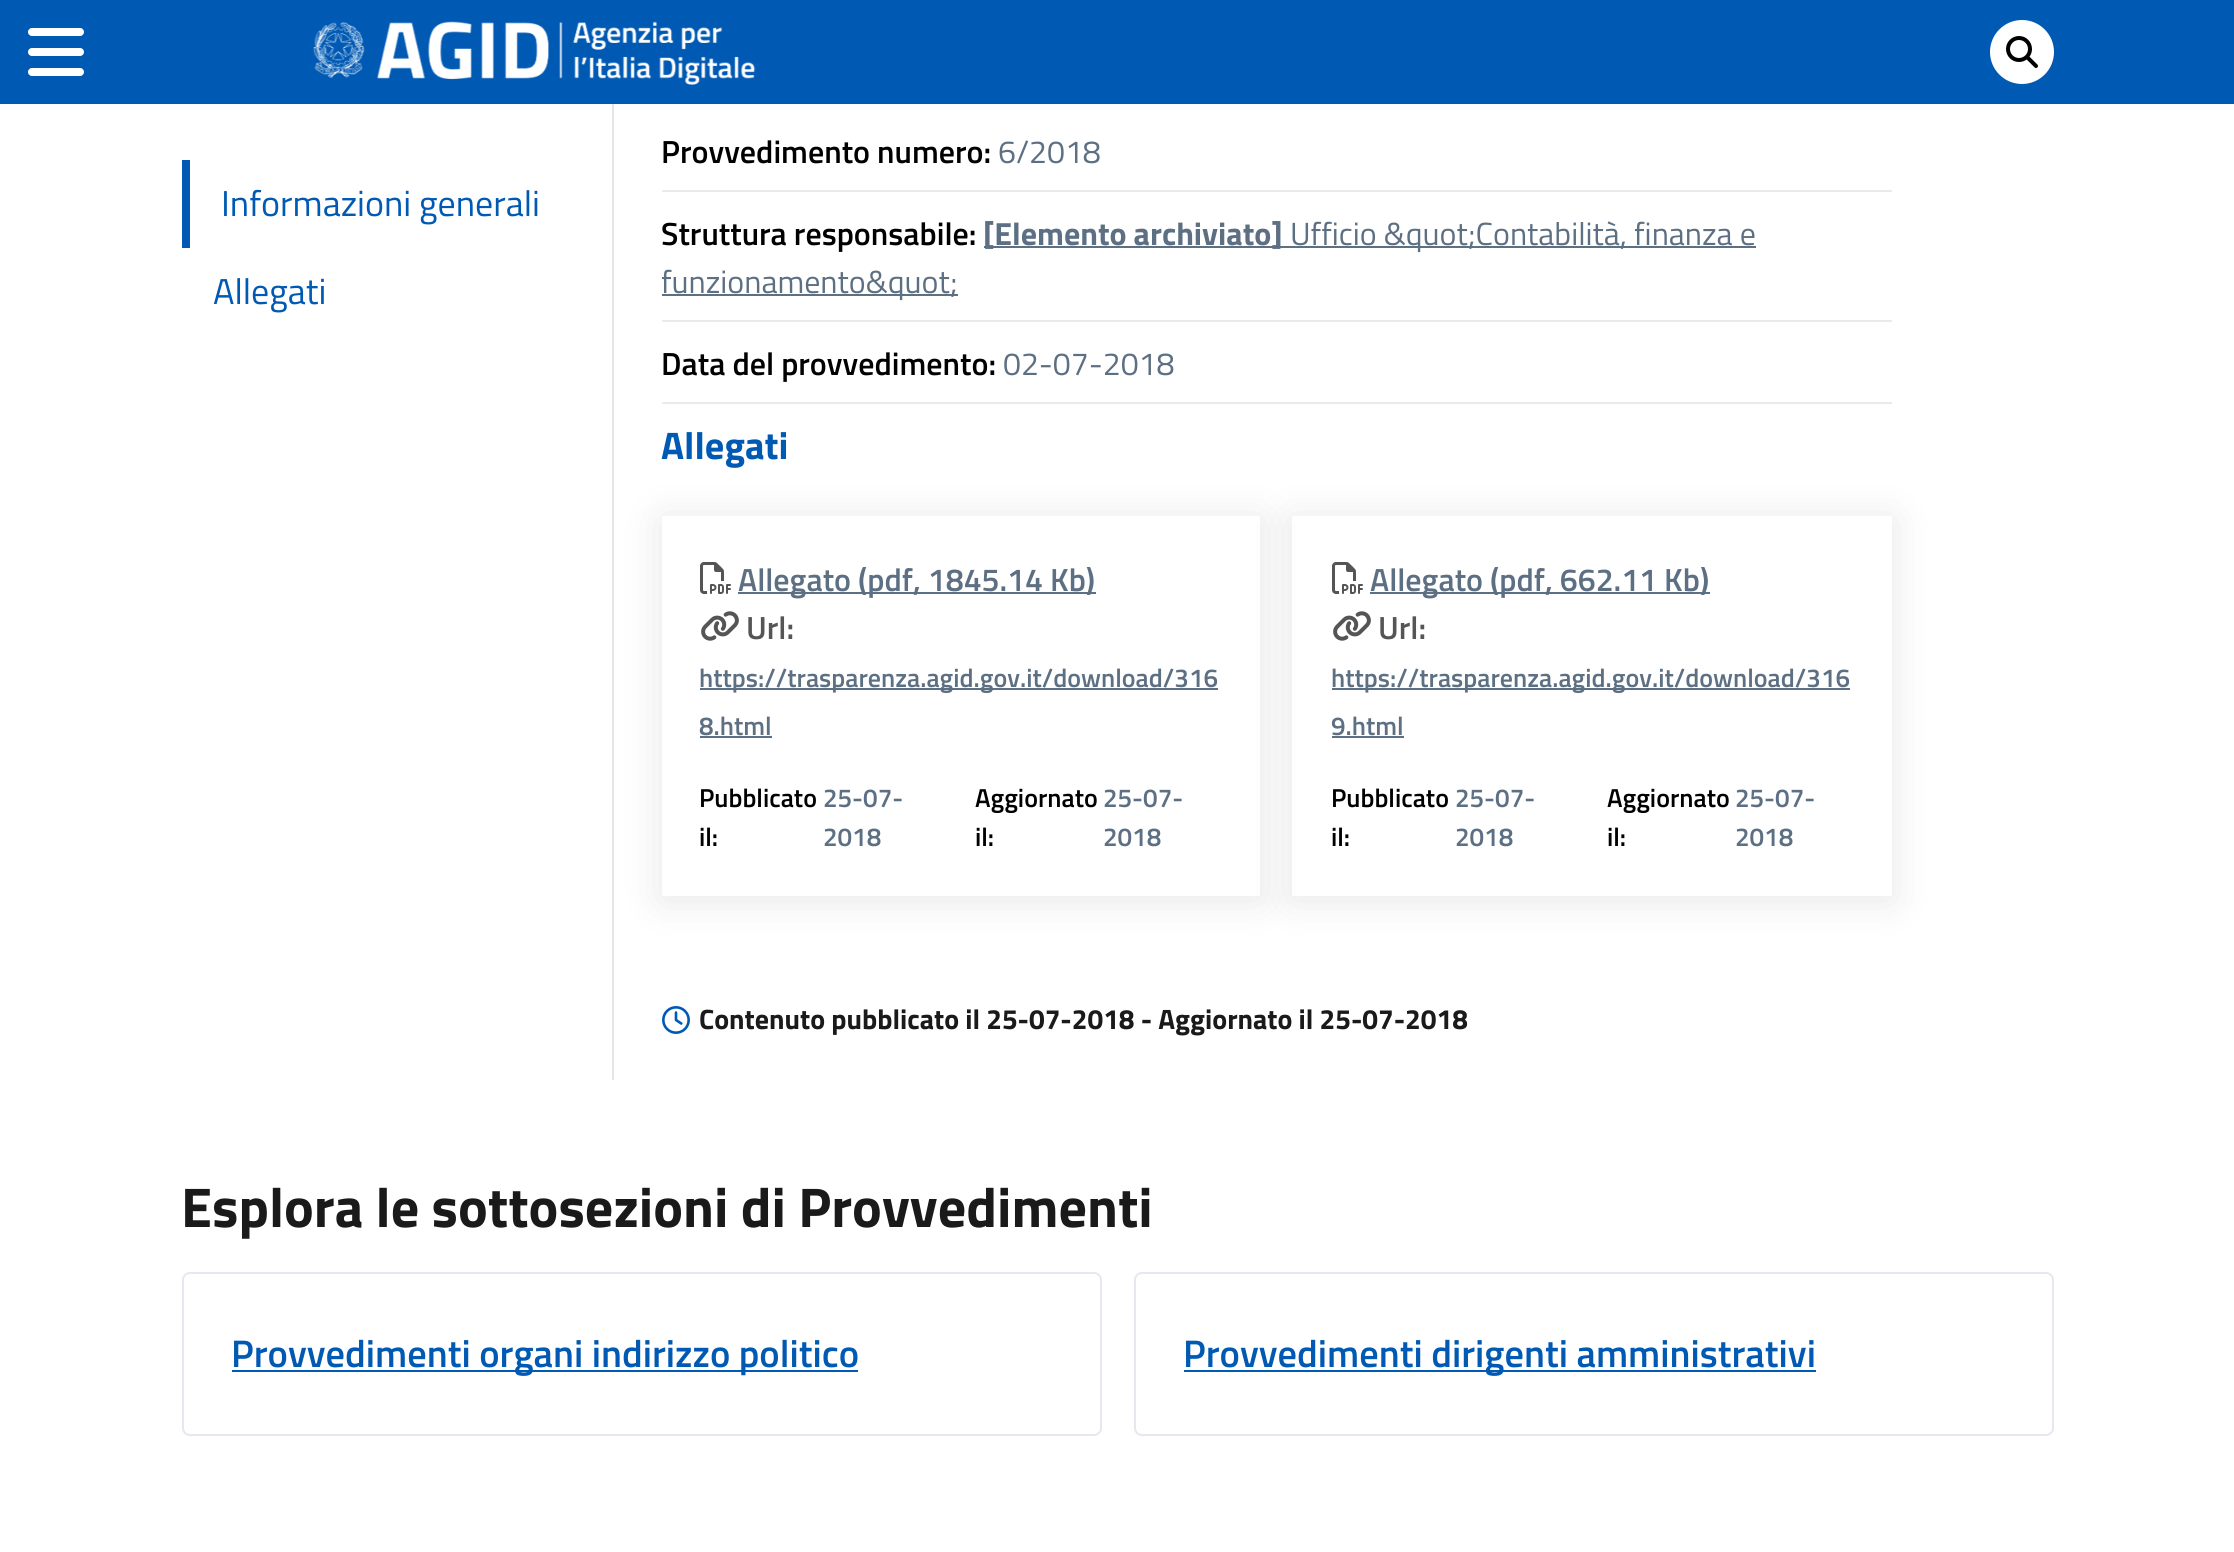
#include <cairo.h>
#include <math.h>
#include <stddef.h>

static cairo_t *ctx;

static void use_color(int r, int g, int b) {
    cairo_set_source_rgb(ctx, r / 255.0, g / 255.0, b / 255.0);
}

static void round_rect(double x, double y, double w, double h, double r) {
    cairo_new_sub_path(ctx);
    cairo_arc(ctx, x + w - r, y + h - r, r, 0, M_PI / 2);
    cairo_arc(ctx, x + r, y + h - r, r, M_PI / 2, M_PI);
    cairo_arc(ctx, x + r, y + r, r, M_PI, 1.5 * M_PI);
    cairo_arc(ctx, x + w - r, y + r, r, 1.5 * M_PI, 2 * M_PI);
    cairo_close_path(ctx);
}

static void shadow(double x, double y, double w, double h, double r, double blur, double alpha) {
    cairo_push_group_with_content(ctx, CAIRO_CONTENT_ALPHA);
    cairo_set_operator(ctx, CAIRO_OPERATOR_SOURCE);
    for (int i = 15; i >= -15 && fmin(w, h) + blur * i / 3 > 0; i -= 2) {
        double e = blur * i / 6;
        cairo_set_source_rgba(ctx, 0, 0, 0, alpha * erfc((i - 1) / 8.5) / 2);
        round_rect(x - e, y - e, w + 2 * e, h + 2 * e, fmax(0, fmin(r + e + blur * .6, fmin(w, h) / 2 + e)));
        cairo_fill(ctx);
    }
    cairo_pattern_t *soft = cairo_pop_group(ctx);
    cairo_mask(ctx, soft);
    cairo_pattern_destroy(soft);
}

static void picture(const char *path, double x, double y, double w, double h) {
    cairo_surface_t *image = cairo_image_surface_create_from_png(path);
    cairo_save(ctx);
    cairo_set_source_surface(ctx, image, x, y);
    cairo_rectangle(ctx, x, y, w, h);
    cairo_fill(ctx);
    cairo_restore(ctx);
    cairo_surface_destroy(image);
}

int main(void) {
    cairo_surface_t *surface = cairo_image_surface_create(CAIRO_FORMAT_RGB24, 2234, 1552);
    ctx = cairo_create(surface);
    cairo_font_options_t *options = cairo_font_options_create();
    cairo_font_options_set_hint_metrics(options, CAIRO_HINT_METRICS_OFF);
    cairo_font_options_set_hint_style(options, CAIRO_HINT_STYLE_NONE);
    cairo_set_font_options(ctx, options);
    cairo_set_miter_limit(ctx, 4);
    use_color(255, 255, 255);
    cairo_paint(ctx);
    use_color(0, 89, 179);
    cairo_rectangle(ctx, 0, 0, 2234, 104);
    cairo_fill(ctx);
    picture("img1.png", 28, 28, 56, 48);
    picture("img2.png", 313, 21, 443, 64);
    use_color(255, 255, 255);
    cairo_arc(ctx, 2022, 52, 32, 0, 2 * M_PI);
    cairo_fill(ctx);
    picture("img3.png", 2006, 36, 32, 32);
    use_color(229, 229, 229);
    cairo_rectangle(ctx, 612, 104, 2, 976);
    cairo_fill(ctx);
    use_color(0, 89, 179);
    cairo_rectangle(ctx, 182, 160, 8, 88);
    cairo_fill(ctx);
    cairo_select_font_face(ctx, "Titillium Web", CAIRO_FONT_SLANT_NORMAL, CAIRO_FONT_WEIGHT_NORMAL);
    cairo_set_font_size(ctx, 36);
    cairo_move_to(ctx, 221, 216);
    cairo_show_text(ctx, "Informazioni generali");
    cairo_move_to(ctx, 213, 304);
    cairo_show_text(ctx, "Allegati");
    use_color(234, 234, 234);
    cairo_rectangle(ctx, 662, 190, 1230, 2);
    cairo_fill(ctx);
    cairo_select_font_face(ctx, "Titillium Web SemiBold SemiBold", CAIRO_FONT_SLANT_NORMAL, CAIRO_FONT_WEIGHT_NORMAL);
    cairo_set_font_size(ctx, 32);
    use_color(0, 0, 0);
    cairo_move_to(ctx, 661, 163);
    cairo_show_text(ctx, "Provvedimento numero:");
    cairo_select_font_face(ctx, "Titillium Web", CAIRO_FONT_SLANT_NORMAL, CAIRO_FONT_WEIGHT_NORMAL);
    use_color(93, 112, 131);
    cairo_move_to(ctx, 998, 163);
    cairo_show_text(ctx, "6/2018");
    use_color(234, 234, 234);
    cairo_rectangle(ctx, 662, 320, 1230, 2);
    cairo_fill(ctx);
    cairo_select_font_face(ctx, "Titillium Web SemiBold SemiBold", CAIRO_FONT_SLANT_NORMAL, CAIRO_FONT_WEIGHT_NORMAL);
    use_color(0, 0, 0);
    cairo_move_to(ctx, 661, 245);
    cairo_show_text(ctx, "Struttura responsabile:");
    use_color(93, 112, 131);
    cairo_rectangle(ctx, 984, 246, 772, 2);
    cairo_fill(ctx);
    cairo_select_font_face(ctx, "Titillium Web", CAIRO_FONT_SLANT_NORMAL, CAIRO_FONT_WEIGHT_BOLD);
    cairo_move_to(ctx, 983, 245);
    cairo_show_text(ctx, "[Elemento archiviato]");
    cairo_select_font_face(ctx, "Titillium Web", CAIRO_FONT_SLANT_NORMAL, CAIRO_FONT_WEIGHT_NORMAL);
    cairo_move_to(ctx, 1290, 245);
    cairo_show_text(ctx, "Ufficio &quot;Contabilità, finanza e");
    cairo_rectangle(ctx, 662, 294, 296, 2);
    cairo_fill(ctx);
    cairo_move_to(ctx, 661, 293);
    cairo_show_text(ctx, "funzionamento&quot;");
    use_color(234, 234, 234);
    cairo_rectangle(ctx, 662, 402, 1230, 2);
    cairo_fill(ctx);
    cairo_select_font_face(ctx, "Titillium Web SemiBold SemiBold", CAIRO_FONT_SLANT_NORMAL, CAIRO_FONT_WEIGHT_NORMAL);
    use_color(0, 0, 0);
    cairo_move_to(ctx, 661, 375);
    cairo_show_text(ctx, "Data del provvedimento:");
    cairo_select_font_face(ctx, "Titillium Web", CAIRO_FONT_SLANT_NORMAL, CAIRO_FONT_WEIGHT_NORMAL);
    use_color(93, 112, 131);
    cairo_move_to(ctx, 1003, 375);
    cairo_show_text(ctx, "02-07-2018");
    cairo_select_font_face(ctx, "Titillium Web", CAIRO_FONT_SLANT_NORMAL, CAIRO_FONT_WEIGHT_BOLD);
    cairo_set_font_size(ctx, 38.4);
    use_color(0, 89, 179);
    cairo_move_to(ctx, 661, 459);
    cairo_show_text(ctx, "Allegati");
    cairo_save(ctx);
    cairo_set_fill_rule(ctx, CAIRO_FILL_RULE_EVEN_ODD);
    cairo_new_path(ctx);
    cairo_move_to(ctx, 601, 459);
    cairo_line_to(ctx, 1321, 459);
    cairo_line_to(ctx, 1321, 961);
    cairo_line_to(ctx, 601, 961);
    cairo_close_path(ctx);
    cairo_move_to(ctx, 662, 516);
    cairo_line_to(ctx, 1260, 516);
    cairo_line_to(ctx, 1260, 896);
    cairo_line_to(ctx, 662, 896);
    cairo_close_path(ctx);
    cairo_clip(ctx);
    use_color(0, 0, 0);
    shadow(662, 520, 598, 380, 0, 20, 0.1);
    cairo_restore(ctx);
    picture("img4.png", 700, 562, 31, 32);
    use_color(93, 112, 131);
    cairo_rectangle(ctx, 738, 592, 358, 2);
    cairo_fill(ctx);
    cairo_select_font_face(ctx, "Titillium Web SemiBold SemiBold", CAIRO_FONT_SLANT_NORMAL, CAIRO_FONT_WEIGHT_NORMAL);
    cairo_set_font_size(ctx, 32);
    cairo_move_to(ctx, 738, 591);
    cairo_show_text(ctx, "Allegato (pdf, 1845.14 Kb)");
    picture("img5.png", 701, 611, 38, 30);
    use_color(85, 85, 85);
    cairo_move_to(ctx, 746, 639);
    cairo_show_text(ctx, "Url:");
    use_color(93, 112, 131);
    cairo_rectangle(ctx, 700, 688, 518, 2);
    cairo_fill(ctx);
    cairo_set_font_size(ctx, 26);
    cairo_move_to(ctx, 699, 687);
    cairo_show_text(ctx, "https://trasparenza.agid.gov.it/download/316");
    cairo_move_to(ctx, 699, 735);
    cairo_show_text(ctx, "8.html");
    cairo_rectangle(ctx, 700, 736, 72, 2);
    cairo_fill(ctx);
    use_color(0, 0, 0);
    cairo_move_to(ctx, 699, 807);
    cairo_show_text(ctx, "Pubblicato");
    cairo_move_to(ctx, 699, 846);
    cairo_show_text(ctx, "il:");
    use_color(93, 112, 131);
    cairo_move_to(ctx, 823, 807);
    cairo_show_text(ctx, "25-07-");
    cairo_move_to(ctx, 823, 846);
    cairo_show_text(ctx, "2018");
    use_color(0, 0, 0);
    cairo_move_to(ctx, 975, 807);
    cairo_show_text(ctx, "Aggiornato");
    cairo_move_to(ctx, 975, 846);
    cairo_show_text(ctx, "il:");
    use_color(93, 112, 131);
    cairo_move_to(ctx, 1103, 807);
    cairo_show_text(ctx, "25-07-");
    cairo_move_to(ctx, 1103, 846);
    cairo_show_text(ctx, "2018");
    cairo_save(ctx);
    cairo_set_fill_rule(ctx, CAIRO_FILL_RULE_EVEN_ODD);
    cairo_new_path(ctx);
    cairo_move_to(ctx, 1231, 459);
    cairo_line_to(ctx, 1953, 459);
    cairo_line_to(ctx, 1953, 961);
    cairo_line_to(ctx, 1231, 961);
    cairo_close_path(ctx);
    cairo_move_to(ctx, 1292, 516);
    cairo_line_to(ctx, 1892, 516);
    cairo_line_to(ctx, 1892, 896);
    cairo_line_to(ctx, 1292, 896);
    cairo_close_path(ctx);
    cairo_clip(ctx);
    use_color(0, 0, 0);
    shadow(1292, 520, 600, 380, 0, 20, 0.1);
    cairo_restore(ctx);
    picture("img4.png", 1332, 562, 31, 32);
    cairo_rectangle(ctx, 1370, 592, 340, 2);
    cairo_fill(ctx);
    cairo_set_font_size(ctx, 32);
    cairo_move_to(ctx, 1370, 591);
    cairo_show_text(ctx, "Allegato (pdf, 662.11 Kb)");
    picture("img5.png", 1333, 611, 38, 30);
    use_color(85, 85, 85);
    cairo_move_to(ctx, 1378, 639);
    cairo_show_text(ctx, "Url:");
    use_color(93, 112, 131);
    cairo_rectangle(ctx, 1332, 688, 518, 2);
    cairo_fill(ctx);
    cairo_set_font_size(ctx, 26);
    cairo_move_to(ctx, 1331, 687);
    cairo_show_text(ctx, "https://trasparenza.agid.gov.it/download/316");
    cairo_move_to(ctx, 1331, 735);
    cairo_show_text(ctx, "9.html");
    cairo_rectangle(ctx, 1332, 736, 72, 2);
    cairo_fill(ctx);
    use_color(0, 0, 0);
    cairo_move_to(ctx, 1331, 807);
    cairo_show_text(ctx, "Pubblicato");
    cairo_move_to(ctx, 1331, 846);
    cairo_show_text(ctx, "il:");
    use_color(93, 112, 131);
    cairo_move_to(ctx, 1455, 807);
    cairo_show_text(ctx, "25-07-");
    cairo_move_to(ctx, 1455, 846);
    cairo_show_text(ctx, "2018");
    use_color(0, 0, 0);
    cairo_move_to(ctx, 1607, 807);
    cairo_show_text(ctx, "Aggiornato");
    cairo_move_to(ctx, 1607, 846);
    cairo_show_text(ctx, "il:");
    use_color(93, 112, 131);
    cairo_move_to(ctx, 1735, 807);
    cairo_show_text(ctx, "25-07-");
    cairo_move_to(ctx, 1735, 846);
    cairo_show_text(ctx, "2018");
    picture("img6.png", 662, 1006, 28, 28);
    cairo_select_font_face(ctx, "Titillium Web", CAIRO_FONT_SLANT_NORMAL, CAIRO_FONT_WEIGHT_BOLD);
    cairo_set_font_size(ctx, 28);
    use_color(26, 26, 26);
    cairo_move_to(ctx, 699, 1029);
    cairo_show_text(ctx, "Contenuto pubblicato il 25-07-2018 - Aggiornato il 25-07-2018");
    cairo_set_font_size(ctx, 56);
    cairo_move_to(ctx, 181, 1227);
    cairo_show_text(ctx, "Esplora le sottosezioni di Provvedimenti");
    round_rect(183, 1273, 918, 162, 7);
    use_color(233, 230, 242);
    cairo_stroke(ctx);
    use_color(0, 89, 179);
    cairo_rectangle(ctx, 232, 1370, 626, 2);
    cairo_fill(ctx);
    cairo_select_font_face(ctx, "Titillium Web SemiBold SemiBold", CAIRO_FONT_SLANT_NORMAL, CAIRO_FONT_WEIGHT_NORMAL);
    cairo_set_font_size(ctx, 38.4);
    cairo_move_to(ctx, 231, 1367);
    cairo_show_text(ctx, "Provvedimenti organi indirizzo politico");
    round_rect(1135, 1273, 918, 162, 7);
    use_color(233, 230, 242);
    cairo_stroke(ctx);
    use_color(0, 89, 179);
    cairo_rectangle(ctx, 1184, 1370, 632, 2);
    cairo_fill(ctx);
    cairo_move_to(ctx, 1183, 1367);
    cairo_show_text(ctx, "Provvedimenti dirigenti amministrativi");
    cairo_surface_write_to_png(surface, "result.png");
    cairo_font_options_destroy(options);
    cairo_destroy(ctx);
    cairo_surface_destroy(surface);
    return 0;
}
